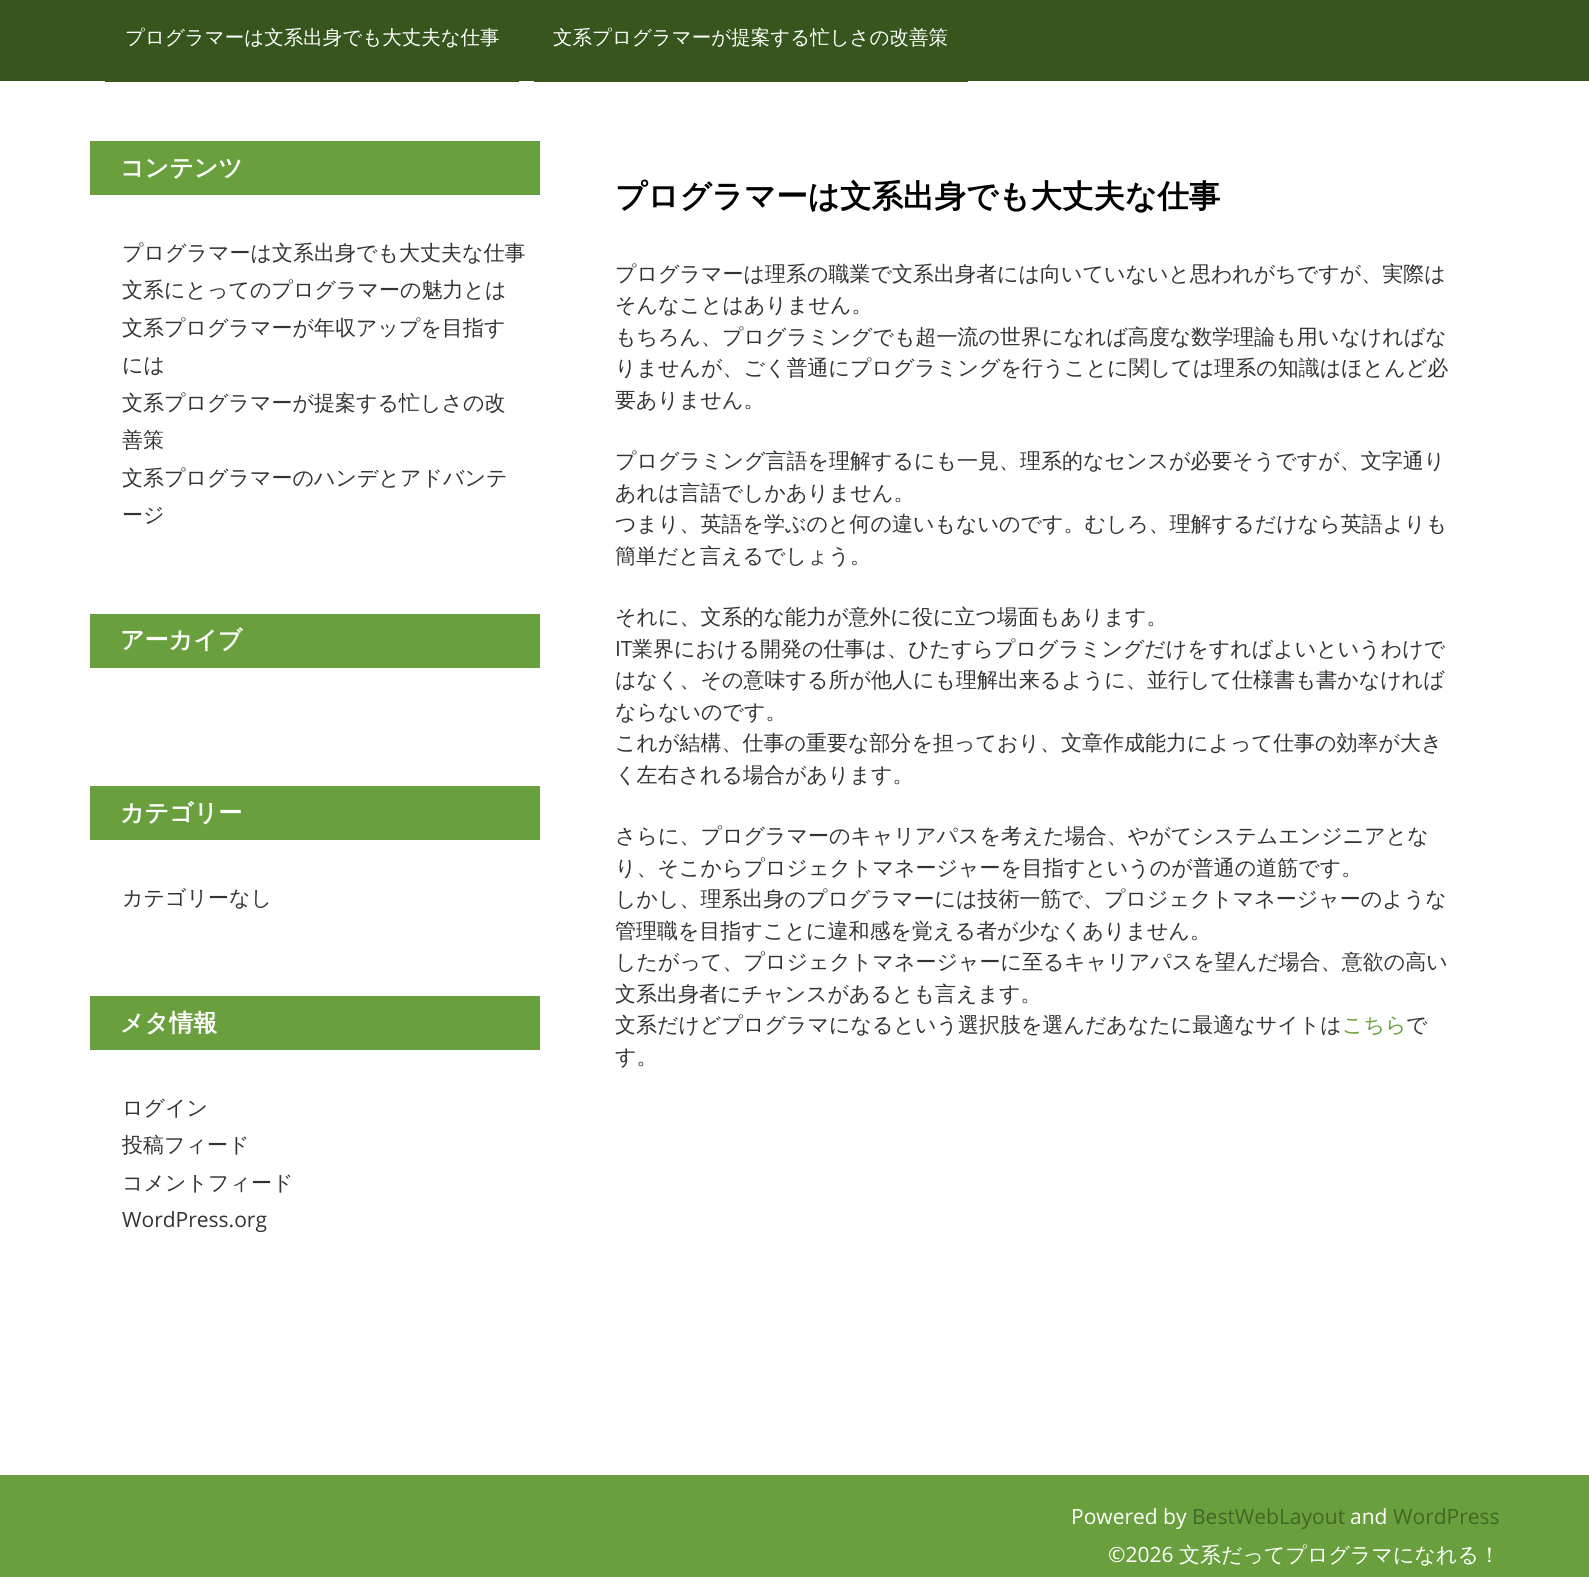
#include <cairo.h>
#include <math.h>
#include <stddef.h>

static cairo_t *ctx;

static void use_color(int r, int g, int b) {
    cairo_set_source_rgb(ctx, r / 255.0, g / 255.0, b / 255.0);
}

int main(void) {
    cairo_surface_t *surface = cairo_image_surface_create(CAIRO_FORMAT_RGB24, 1589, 1577);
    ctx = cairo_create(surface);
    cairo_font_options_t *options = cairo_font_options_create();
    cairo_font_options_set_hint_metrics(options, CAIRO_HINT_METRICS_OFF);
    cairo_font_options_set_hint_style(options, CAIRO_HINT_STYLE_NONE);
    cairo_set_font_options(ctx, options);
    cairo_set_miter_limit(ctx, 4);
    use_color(255, 255, 255);
    cairo_paint(ctx);
    use_color(55, 86, 29);
    cairo_rectangle(ctx, 0, 0, 1589, 81);
    cairo_fill(ctx);
    cairo_rectangle(ctx, 105, 81, 414, 1);
    cairo_fill(ctx);
    cairo_select_font_face(ctx, "WenQuanYi Zen Hei Medium", CAIRO_FONT_SLANT_NORMAL, CAIRO_FONT_WEIGHT_NORMAL);
    cairo_set_font_size(ctx, 19.5);
    use_color(255, 255, 255);
    cairo_move_to(ctx, 125, 44);
    cairo_show_text(ctx, "プログラマーは文系出身でも大丈夫な仕事");
    use_color(55, 86, 29);
    cairo_rectangle(ctx, 534, 81, 434, 1);
    cairo_fill(ctx);
    use_color(255, 255, 255);
    cairo_move_to(ctx, 553, 44);
    cairo_show_text(ctx, "文系プログラマーが提案する忙しさの改善策");
    use_color(105, 160, 61);
    cairo_rectangle(ctx, 90, 141, 450, 54);
    cairo_fill(ctx);
    cairo_select_font_face(ctx, "WenQuanYi Zen Hei", CAIRO_FONT_SLANT_NORMAL, CAIRO_FONT_WEIGHT_BOLD);
    cairo_set_font_size(ctx, 24);
    use_color(255, 255, 255);
    cairo_move_to(ctx, 120, 176);
    cairo_show_text(ctx, "コンテンツ");
    cairo_select_font_face(ctx, "WenQuanYi Zen Hei Medium", CAIRO_FONT_SLANT_NORMAL, CAIRO_FONT_WEIGHT_NORMAL);
    cairo_set_font_size(ctx, 21);
    use_color(51, 51, 51);
    cairo_move_to(ctx, 122, 260);
    cairo_show_text(ctx, "プログラマーは文系出身でも大丈夫な仕事");
    cairo_move_to(ctx, 122, 297);
    cairo_show_text(ctx, "文系にとってのプログラマーの魅力とは");
    cairo_move_to(ctx, 122, 335);
    cairo_show_text(ctx, "文系プログラマーが年収アップを目指す");
    cairo_move_to(ctx, 122, 372);
    cairo_show_text(ctx, "には");
    cairo_move_to(ctx, 122, 410);
    cairo_show_text(ctx, "文系プログラマーが提案する忙しさの改");
    cairo_move_to(ctx, 122, 447);
    cairo_show_text(ctx, "善策");
    cairo_move_to(ctx, 122, 485);
    cairo_show_text(ctx, "文系プログラマーのハンデとアドバンテ");
    cairo_move_to(ctx, 122, 522);
    cairo_show_text(ctx, "ージ");
    use_color(105, 160, 61);
    cairo_rectangle(ctx, 90, 614, 450, 54);
    cairo_fill(ctx);
    cairo_select_font_face(ctx, "WenQuanYi Zen Hei", CAIRO_FONT_SLANT_NORMAL, CAIRO_FONT_WEIGHT_BOLD);
    cairo_set_font_size(ctx, 24);
    use_color(255, 255, 255);
    cairo_move_to(ctx, 120, 648);
    cairo_show_text(ctx, "アーカイブ");
    use_color(105, 160, 61);
    cairo_rectangle(ctx, 90, 786, 450, 54);
    cairo_fill(ctx);
    use_color(255, 255, 255);
    cairo_move_to(ctx, 120, 821);
    cairo_show_text(ctx, "カテゴリー");
    cairo_select_font_face(ctx, "WenQuanYi Zen Hei Medium", CAIRO_FONT_SLANT_NORMAL, CAIRO_FONT_WEIGHT_NORMAL);
    cairo_set_font_size(ctx, 21);
    use_color(51, 51, 51);
    cairo_move_to(ctx, 122, 905);
    cairo_show_text(ctx, "カテゴリーなし");
    use_color(105, 160, 61);
    cairo_rectangle(ctx, 90, 996, 450, 54);
    cairo_fill(ctx);
    cairo_select_font_face(ctx, "WenQuanYi Zen Hei", CAIRO_FONT_SLANT_NORMAL, CAIRO_FONT_WEIGHT_BOLD);
    cairo_set_font_size(ctx, 24);
    use_color(255, 255, 255);
    cairo_move_to(ctx, 120, 1031);
    cairo_show_text(ctx, "メタ情報");
    cairo_select_font_face(ctx, "WenQuanYi Zen Hei Medium", CAIRO_FONT_SLANT_NORMAL, CAIRO_FONT_WEIGHT_NORMAL);
    cairo_set_font_size(ctx, 21);
    use_color(51, 51, 51);
    cairo_move_to(ctx, 122, 1115);
    cairo_show_text(ctx, "ログイン");
    cairo_move_to(ctx, 122, 1152);
    cairo_show_text(ctx, "投稿フィード");
    cairo_move_to(ctx, 122, 1190);
    cairo_show_text(ctx, "コメントフィード");
    cairo_select_font_face(ctx, "Open Sans", CAIRO_FONT_SLANT_NORMAL, CAIRO_FONT_WEIGHT_NORMAL);
    cairo_move_to(ctx, 122, 1227);
    cairo_show_text(ctx, "WordPress.org");
    cairo_select_font_face(ctx, "WenQuanYi Zen Hei", CAIRO_FONT_SLANT_NORMAL, CAIRO_FONT_WEIGHT_BOLD);
    cairo_set_font_size(ctx, 31.5);
    use_color(0, 0, 0);
    cairo_move_to(ctx, 615, 207);
    cairo_show_text(ctx, "プログラマーは文系出身でも大丈夫な仕事");
    cairo_select_font_face(ctx, "WenQuanYi Zen Hei Medium", CAIRO_FONT_SLANT_NORMAL, CAIRO_FONT_WEIGHT_NORMAL);
    cairo_set_font_size(ctx, 21);
    use_color(51, 51, 51);
    cairo_move_to(ctx, 615, 281);
    cairo_show_text(ctx, "プログラマーは理系の職業で文系出身者には向いていないと思われがちですが、実際は");
    cairo_move_to(ctx, 615, 312);
    cairo_show_text(ctx, "そんなことはありません。");
    cairo_move_to(ctx, 615, 344);
    cairo_show_text(ctx, "もちろん、プログラミングでも超一流の世界になれば高度な数学理論も用いなければな");
    cairo_move_to(ctx, 615, 375);
    cairo_show_text(ctx, "りませんが、ごく普通にプログラミングを行うことに関しては理系の知識はほとんど必");
    cairo_move_to(ctx, 615, 407);
    cairo_show_text(ctx, "要ありません。");
    cairo_move_to(ctx, 615, 468);
    cairo_show_text(ctx, "プログラミング言語を理解するにも一見、理系的なセンスが必要そうですが、文字通り");
    cairo_move_to(ctx, 615, 500);
    cairo_show_text(ctx, "あれは言語でしかありません。");
    cairo_move_to(ctx, 615, 531);
    cairo_show_text(ctx, "つまり、英語を学ぶのと何の違いもないのです。むしろ、理解するだけなら英語よりも");
    cairo_move_to(ctx, 615, 563);
    cairo_show_text(ctx, "簡単だと言えるでしょう。");
    cairo_move_to(ctx, 615, 624);
    cairo_show_text(ctx, "それに、文系的な能力が意外に役に立つ場面もあります。");
    cairo_select_font_face(ctx, "Open Sans", CAIRO_FONT_SLANT_NORMAL, CAIRO_FONT_WEIGHT_NORMAL);
    cairo_move_to(ctx, 615, 656);
    cairo_show_text(ctx, "IT");
    cairo_select_font_face(ctx, "WenQuanYi Zen Hei Medium", CAIRO_FONT_SLANT_NORMAL, CAIRO_FONT_WEIGHT_NORMAL);
    cairo_move_to(ctx, 632, 656);
    cairo_show_text(ctx, "業界における開発の仕事は、ひたすらプログラミングだけをすればよいというわけで");
    cairo_move_to(ctx, 615, 687);
    cairo_show_text(ctx, "はなく、その意味する所が他人にも理解出来るように、並行して仕様書も書かなければ");
    cairo_move_to(ctx, 615, 719);
    cairo_show_text(ctx, "ならないのです。");
    cairo_move_to(ctx, 615, 750);
    cairo_show_text(ctx, "これが結構、仕事の重要な部分を担っており、文章作成能力によって仕事の効率が大き");
    cairo_move_to(ctx, 615, 782);
    cairo_show_text(ctx, "く左右される場合があります。");
    cairo_move_to(ctx, 615, 843);
    cairo_show_text(ctx, "さらに、プログラマーのキャリアパスを考えた場合、やがてシステムエンジニアとな");
    cairo_move_to(ctx, 615, 875);
    cairo_show_text(ctx, "り、そこからプロジェクトマネージャーを目指すというのが普通の道筋です。");
    cairo_move_to(ctx, 615, 906);
    cairo_show_text(ctx, "しかし、理系出身のプログラマーには技術一筋で、プロジェクトマネージャーのような");
    cairo_move_to(ctx, 615, 938);
    cairo_show_text(ctx, "管理職を目指すことに違和感を覚える者が少なくありません。");
    cairo_move_to(ctx, 615, 969);
    cairo_show_text(ctx, "したがって、プロジェクトマネージャーに至るキャリアパスを望んだ場合、意欲の高い");
    cairo_move_to(ctx, 615, 1001);
    cairo_show_text(ctx, "文系出身者にチャンスがあるとも言えます。");
    cairo_move_to(ctx, 615, 1032);
    cairo_show_text(ctx, "文系だけどプログラマになるという選択肢を選んだあなたに最適なサイトは");
    use_color(107, 159, 61);
    cairo_move_to(ctx, 1342, 1032);
    cairo_show_text(ctx, "こちら");
    use_color(51, 51, 51);
    cairo_move_to(ctx, 1406, 1032);
    cairo_show_text(ctx, "で");
    cairo_move_to(ctx, 615, 1064);
    cairo_show_text(ctx, "す。");
    use_color(105, 160, 61);
    cairo_rectangle(ctx, 0, 1475, 1589, 102);
    cairo_fill(ctx);
    cairo_select_font_face(ctx, "Open Sans", CAIRO_FONT_SLANT_NORMAL, CAIRO_FONT_WEIGHT_NORMAL);
    use_color(255, 255, 255);
    cairo_move_to(ctx, 1071, 1524);
    cairo_show_text(ctx, "Powered by");
    use_color(66, 102, 40);
    cairo_move_to(ctx, 1192, 1524);
    cairo_show_text(ctx, "BestWebLayout");
    use_color(255, 255, 255);
    cairo_move_to(ctx, 1350, 1524);
    cairo_show_text(ctx, "and");
    use_color(66, 102, 40);
    cairo_move_to(ctx, 1393, 1524);
    cairo_show_text(ctx, "WordPress");
    use_color(255, 255, 255);
    cairo_move_to(ctx, 1108, 1562);
    cairo_show_text(ctx, "©2026");
    cairo_select_font_face(ctx, "WenQuanYi Zen Hei Medium", CAIRO_FONT_SLANT_NORMAL, CAIRO_FONT_WEIGHT_NORMAL);
    cairo_move_to(ctx, 1179, 1562);
    cairo_show_text(ctx, "文系だってプログラマになれる！");
    cairo_surface_write_to_png(surface, "result.png");
    cairo_font_options_destroy(options);
    cairo_destroy(ctx);
    cairo_surface_destroy(surface);
    return 0;
}
